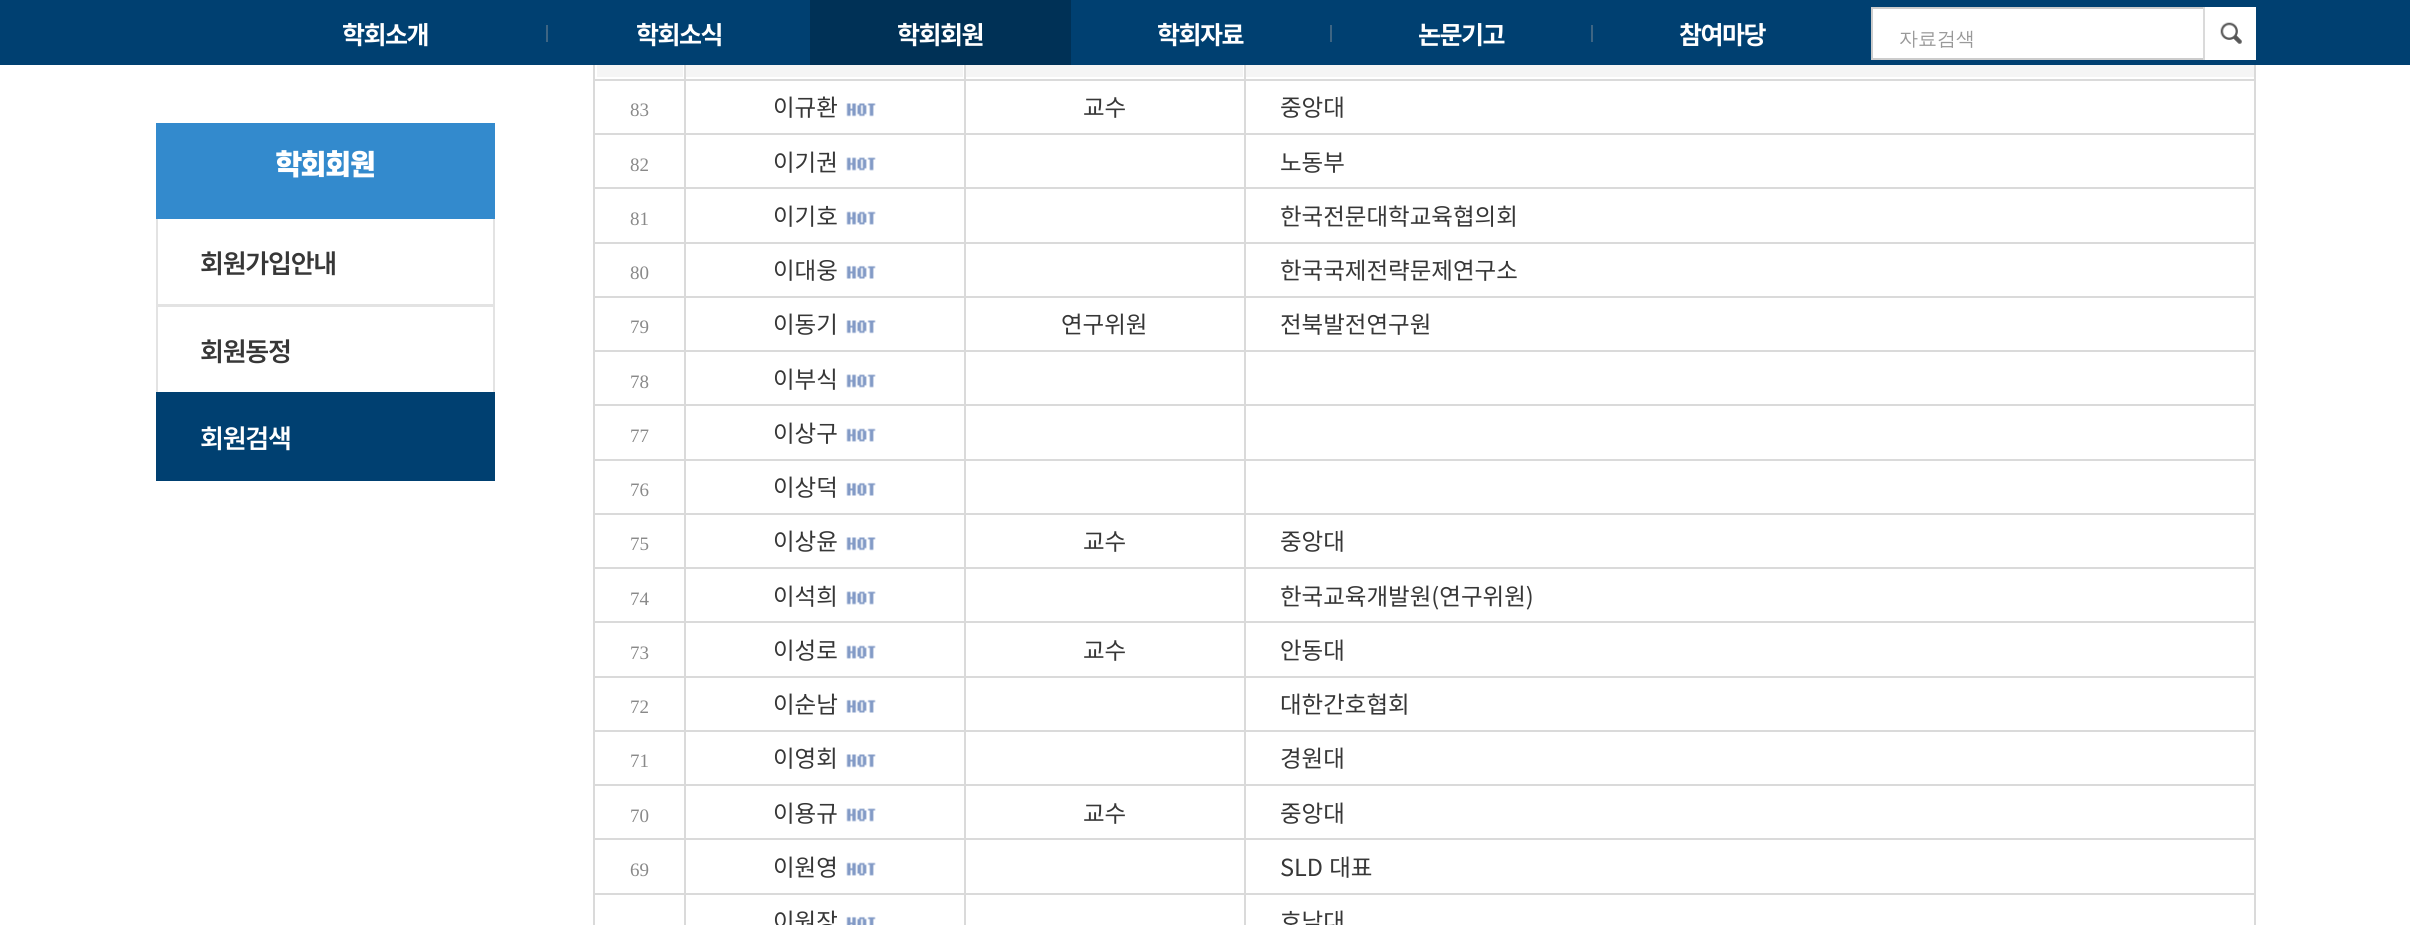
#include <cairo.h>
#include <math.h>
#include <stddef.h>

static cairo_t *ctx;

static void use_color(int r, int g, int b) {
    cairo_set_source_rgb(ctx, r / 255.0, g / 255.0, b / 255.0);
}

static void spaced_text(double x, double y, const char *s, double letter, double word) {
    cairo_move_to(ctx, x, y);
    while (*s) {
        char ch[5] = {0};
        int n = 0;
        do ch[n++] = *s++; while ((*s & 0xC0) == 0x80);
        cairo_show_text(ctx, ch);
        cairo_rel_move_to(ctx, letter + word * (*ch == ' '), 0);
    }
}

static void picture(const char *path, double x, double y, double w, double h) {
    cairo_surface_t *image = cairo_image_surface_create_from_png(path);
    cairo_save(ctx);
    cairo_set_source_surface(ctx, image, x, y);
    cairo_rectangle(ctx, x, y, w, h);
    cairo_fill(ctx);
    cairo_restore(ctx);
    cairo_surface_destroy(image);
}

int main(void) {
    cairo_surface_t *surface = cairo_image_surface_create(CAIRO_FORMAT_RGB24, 2410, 925);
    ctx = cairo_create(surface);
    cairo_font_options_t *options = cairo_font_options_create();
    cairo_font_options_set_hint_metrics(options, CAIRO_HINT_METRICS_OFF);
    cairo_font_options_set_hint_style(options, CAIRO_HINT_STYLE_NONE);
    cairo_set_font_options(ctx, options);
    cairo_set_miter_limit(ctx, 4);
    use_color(255, 255, 255);
    cairo_paint(ctx);
    use_color(0, 64, 113);
    cairo_rectangle(ctx, 0, 0, 2410, 65);
    cairo_fill(ctx);
    cairo_select_font_face(ctx, "Noto Sans KR", CAIRO_FONT_SLANT_NORMAL, CAIRO_FONT_WEIGHT_BOLD);
    cairo_set_font_size(ctx, 25);
    use_color(255, 255, 255);
    spaced_text(342, 44, "학회소개", -1.5, 0);
    use_color(62, 101, 131);
    cairo_rectangle(ctx, 546, 25, 2, 17);
    cairo_fill(ctx);
    use_color(255, 255, 255);
    spaced_text(636, 44, "학회소식", -1.5, 0);
    use_color(0, 49, 86);
    cairo_rectangle(ctx, 810, 0, 261, 65);
    cairo_fill(ctx);
    use_color(255, 255, 255);
    spaced_text(897, 44, "학회회원", -1.5, 0);
    spaced_text(1157, 44, "학회자료", -1.5, 0);
    use_color(62, 101, 131);
    cairo_rectangle(ctx, 1330, 25, 2, 17);
    cairo_fill(ctx);
    use_color(255, 255, 255);
    spaced_text(1418, 44, "논문기고", -1.5, 0);
    use_color(62, 101, 131);
    cairo_rectangle(ctx, 1591, 25, 2, 17);
    cairo_fill(ctx);
    use_color(255, 255, 255);
    spaced_text(1679, 44, "참여마당", -1.5, 0);
    cairo_rectangle(ctx, 1873, 9, 330, 49);
    cairo_fill(ctx);
    cairo_rectangle(ctx, 1872, 8, 383, 51);
    use_color(204, 204, 204);
    cairo_stroke(ctx);
    cairo_select_font_face(ctx, "WenQuanYi Zen Hei Medium", CAIRO_FONT_SLANT_NORMAL, CAIRO_FONT_WEIGHT_NORMAL);
    cairo_set_font_size(ctx, 19);
    use_color(153, 153, 153);
    cairo_move_to(ctx, 1899, 45);
    cairo_show_text(ctx, "자료검색");
    use_color(255, 255, 255);
    cairo_rectangle(ctx, 2205, 7, 51, 53);
    cairo_fill(ctx);
    picture("img1.png", 2220, 22, 22, 22);
    use_color(218, 218, 218);
    cairo_rectangle(ctx, 2203, 7, 2, 53);
    cairo_fill(ctx);
    cairo_rectangle(ctx, 157, 218, 337, 87);
    use_color(227, 227, 227);
    cairo_stroke(ctx);
    use_color(51, 138, 205);
    cairo_rectangle(ctx, 156, 123, 339, 96);
    cairo_fill(ctx);
    cairo_select_font_face(ctx, "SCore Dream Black", CAIRO_FONT_SLANT_NORMAL, CAIRO_FONT_WEIGHT_NORMAL);
    cairo_set_font_size(ctx, 28);
    use_color(255, 255, 255);
    spaced_text(275, 175, "학회회원", -2, 0);
    cairo_select_font_face(ctx, "Noto Sans KR SemiBold", CAIRO_FONT_SLANT_NORMAL, CAIRO_FONT_WEIGHT_NORMAL);
    cairo_set_font_size(ctx, 26);
    use_color(55, 55, 55);
    spaced_text(200, 273, "회원가입안내", -1.25, 0);
    cairo_rectangle(ctx, 157, 306, 337, 87);
    use_color(227, 227, 227);
    cairo_stroke(ctx);
    use_color(55, 55, 55);
    spaced_text(200, 361, "회원동정", -1.25, 0);
    use_color(0, 64, 113);
    cairo_rectangle(ctx, 156, 392, 339, 89);
    cairo_fill(ctx);
    use_color(255, 255, 255);
    spaced_text(200, 448, "회원검색", -1.25, 0);
    use_color(245, 245, 245);
    cairo_rectangle(ctx, 597, 65, 86, 12);
    cairo_fill(ctx);
    cairo_rectangle(ctx, 686, 65, 277, 12);
    cairo_fill(ctx);
    use_color(218, 218, 218);
    cairo_rectangle(ctx, 1244, 79, 1012, 2);
    cairo_fill(ctx);
    cairo_rectangle(ctx, 1244, 133, 1012, 2);
    cairo_fill(ctx);
    cairo_rectangle(ctx, 1244, 187, 1012, 2);
    cairo_fill(ctx);
    cairo_rectangle(ctx, 1244, 242, 1012, 2);
    cairo_fill(ctx);
    cairo_rectangle(ctx, 1244, 296, 1012, 2);
    cairo_fill(ctx);
    cairo_rectangle(ctx, 1244, 350, 1012, 2);
    cairo_fill(ctx);
    cairo_rectangle(ctx, 1244, 404, 1012, 2);
    cairo_fill(ctx);
    cairo_rectangle(ctx, 1244, 459, 1012, 2);
    cairo_fill(ctx);
    cairo_rectangle(ctx, 1244, 513, 1012, 2);
    cairo_fill(ctx);
    cairo_rectangle(ctx, 1244, 567, 1012, 2);
    cairo_fill(ctx);
    cairo_rectangle(ctx, 1244, 621, 1012, 2);
    cairo_fill(ctx);
    cairo_rectangle(ctx, 1244, 676, 1012, 2);
    cairo_fill(ctx);
    cairo_rectangle(ctx, 1244, 730, 1012, 2);
    cairo_fill(ctx);
    cairo_rectangle(ctx, 1244, 784, 1012, 2);
    cairo_fill(ctx);
    cairo_rectangle(ctx, 1244, 838, 1012, 2);
    cairo_fill(ctx);
    cairo_rectangle(ctx, 1244, 893, 1012, 2);
    cairo_fill(ctx);
    cairo_rectangle(ctx, 1244, 893, 2, 32);
    cairo_fill(ctx);
    cairo_rectangle(ctx, 964, 893, 282, 2);
    cairo_fill(ctx);
    cairo_rectangle(ctx, 1244, 838, 2, 56);
    cairo_fill(ctx);
    cairo_rectangle(ctx, 964, 838, 282, 2);
    cairo_fill(ctx);
    cairo_rectangle(ctx, 1244, 784, 2, 56);
    cairo_fill(ctx);
    cairo_rectangle(ctx, 964, 784, 282, 2);
    cairo_fill(ctx);
    cairo_rectangle(ctx, 1244, 730, 2, 56);
    cairo_fill(ctx);
    cairo_rectangle(ctx, 964, 730, 282, 2);
    cairo_fill(ctx);
    cairo_rectangle(ctx, 1244, 676, 2, 56);
    cairo_fill(ctx);
    cairo_rectangle(ctx, 964, 676, 282, 2);
    cairo_fill(ctx);
    cairo_rectangle(ctx, 1244, 621, 2, 56);
    cairo_fill(ctx);
    cairo_rectangle(ctx, 964, 621, 282, 2);
    cairo_fill(ctx);
    cairo_rectangle(ctx, 1244, 567, 2, 56);
    cairo_fill(ctx);
    cairo_rectangle(ctx, 964, 567, 282, 2);
    cairo_fill(ctx);
    cairo_rectangle(ctx, 1244, 513, 2, 56);
    cairo_fill(ctx);
    cairo_rectangle(ctx, 964, 513, 282, 2);
    cairo_fill(ctx);
    cairo_rectangle(ctx, 1244, 459, 2, 56);
    cairo_fill(ctx);
    cairo_rectangle(ctx, 964, 459, 282, 2);
    cairo_fill(ctx);
    cairo_rectangle(ctx, 1244, 404, 2, 56);
    cairo_fill(ctx);
    cairo_rectangle(ctx, 964, 404, 282, 2);
    cairo_fill(ctx);
    cairo_rectangle(ctx, 1244, 350, 2, 56);
    cairo_fill(ctx);
    cairo_rectangle(ctx, 964, 350, 282, 2);
    cairo_fill(ctx);
    cairo_rectangle(ctx, 1244, 296, 2, 56);
    cairo_fill(ctx);
    cairo_rectangle(ctx, 964, 296, 282, 2);
    cairo_fill(ctx);
    cairo_rectangle(ctx, 1244, 242, 2, 56);
    cairo_fill(ctx);
    cairo_rectangle(ctx, 964, 242, 282, 2);
    cairo_fill(ctx);
    cairo_rectangle(ctx, 1244, 187, 2, 56);
    cairo_fill(ctx);
    cairo_rectangle(ctx, 964, 187, 282, 2);
    cairo_fill(ctx);
    cairo_rectangle(ctx, 1244, 133, 2, 56);
    cairo_fill(ctx);
    cairo_rectangle(ctx, 964, 133, 282, 2);
    cairo_fill(ctx);
    cairo_rectangle(ctx, 1244, 79, 2, 56);
    cairo_fill(ctx);
    cairo_rectangle(ctx, 964, 79, 282, 2);
    cairo_fill(ctx);
    cairo_rectangle(ctx, 964, 893, 2, 32);
    cairo_fill(ctx);
    cairo_rectangle(ctx, 684, 893, 282, 2);
    cairo_fill(ctx);
    cairo_rectangle(ctx, 964, 838, 2, 56);
    cairo_fill(ctx);
    cairo_rectangle(ctx, 684, 838, 282, 2);
    cairo_fill(ctx);
    cairo_rectangle(ctx, 964, 784, 2, 56);
    cairo_fill(ctx);
    cairo_rectangle(ctx, 684, 784, 282, 2);
    cairo_fill(ctx);
    cairo_rectangle(ctx, 964, 730, 2, 56);
    cairo_fill(ctx);
    cairo_rectangle(ctx, 684, 730, 282, 2);
    cairo_fill(ctx);
    cairo_rectangle(ctx, 964, 676, 2, 56);
    cairo_fill(ctx);
    cairo_rectangle(ctx, 684, 676, 282, 2);
    cairo_fill(ctx);
    cairo_rectangle(ctx, 964, 621, 2, 56);
    cairo_fill(ctx);
    cairo_rectangle(ctx, 684, 621, 282, 2);
    cairo_fill(ctx);
    cairo_rectangle(ctx, 964, 567, 2, 56);
    cairo_fill(ctx);
    cairo_rectangle(ctx, 684, 567, 282, 2);
    cairo_fill(ctx);
    cairo_rectangle(ctx, 964, 513, 2, 56);
    cairo_fill(ctx);
    cairo_rectangle(ctx, 684, 513, 282, 2);
    cairo_fill(ctx);
    cairo_rectangle(ctx, 964, 459, 2, 56);
    cairo_fill(ctx);
    cairo_rectangle(ctx, 684, 459, 282, 2);
    cairo_fill(ctx);
    cairo_rectangle(ctx, 964, 404, 2, 56);
    cairo_fill(ctx);
    cairo_rectangle(ctx, 684, 404, 282, 2);
    cairo_fill(ctx);
    cairo_rectangle(ctx, 964, 350, 2, 56);
    cairo_fill(ctx);
    cairo_rectangle(ctx, 684, 350, 282, 2);
    cairo_fill(ctx);
    cairo_rectangle(ctx, 964, 296, 2, 56);
    cairo_fill(ctx);
    cairo_rectangle(ctx, 684, 296, 282, 2);
    cairo_fill(ctx);
    cairo_rectangle(ctx, 964, 242, 2, 56);
    cairo_fill(ctx);
    cairo_rectangle(ctx, 684, 242, 282, 2);
    cairo_fill(ctx);
    cairo_rectangle(ctx, 964, 187, 2, 56);
    cairo_fill(ctx);
    cairo_rectangle(ctx, 684, 187, 282, 2);
    cairo_fill(ctx);
    cairo_rectangle(ctx, 964, 133, 2, 56);
    cairo_fill(ctx);
    cairo_rectangle(ctx, 684, 133, 282, 2);
    cairo_fill(ctx);
    cairo_rectangle(ctx, 964, 79, 2, 56);
    cairo_fill(ctx);
    cairo_rectangle(ctx, 684, 79, 282, 2);
    cairo_fill(ctx);
    cairo_rectangle(ctx, 684, 893, 2, 32);
    cairo_fill(ctx);
    cairo_rectangle(ctx, 593, 893, 93, 2);
    cairo_fill(ctx);
    cairo_rectangle(ctx, 684, 838, 2, 56);
    cairo_fill(ctx);
    cairo_rectangle(ctx, 593, 838, 93, 2);
    cairo_fill(ctx);
    cairo_rectangle(ctx, 684, 784, 2, 56);
    cairo_fill(ctx);
    cairo_rectangle(ctx, 593, 784, 93, 2);
    cairo_fill(ctx);
    cairo_rectangle(ctx, 684, 730, 2, 56);
    cairo_fill(ctx);
    cairo_rectangle(ctx, 593, 730, 93, 2);
    cairo_fill(ctx);
    cairo_rectangle(ctx, 684, 676, 2, 56);
    cairo_fill(ctx);
    cairo_rectangle(ctx, 593, 676, 93, 2);
    cairo_fill(ctx);
    cairo_rectangle(ctx, 684, 621, 2, 56);
    cairo_fill(ctx);
    cairo_rectangle(ctx, 593, 621, 93, 2);
    cairo_fill(ctx);
    cairo_rectangle(ctx, 684, 567, 2, 56);
    cairo_fill(ctx);
    cairo_rectangle(ctx, 593, 567, 93, 2);
    cairo_fill(ctx);
    cairo_rectangle(ctx, 684, 513, 2, 56);
    cairo_fill(ctx);
    cairo_rectangle(ctx, 593, 513, 93, 2);
    cairo_fill(ctx);
    cairo_rectangle(ctx, 684, 459, 2, 56);
    cairo_fill(ctx);
    cairo_rectangle(ctx, 593, 459, 93, 2);
    cairo_fill(ctx);
    cairo_rectangle(ctx, 684, 404, 2, 56);
    cairo_fill(ctx);
    cairo_rectangle(ctx, 593, 404, 93, 2);
    cairo_fill(ctx);
    cairo_rectangle(ctx, 684, 350, 2, 56);
    cairo_fill(ctx);
    cairo_rectangle(ctx, 593, 350, 93, 2);
    cairo_fill(ctx);
    cairo_rectangle(ctx, 684, 296, 2, 56);
    cairo_fill(ctx);
    cairo_rectangle(ctx, 593, 296, 93, 2);
    cairo_fill(ctx);
    cairo_rectangle(ctx, 684, 242, 2, 56);
    cairo_fill(ctx);
    cairo_rectangle(ctx, 593, 242, 93, 2);
    cairo_fill(ctx);
    cairo_rectangle(ctx, 684, 187, 2, 56);
    cairo_fill(ctx);
    cairo_rectangle(ctx, 593, 187, 93, 2);
    cairo_fill(ctx);
    cairo_rectangle(ctx, 684, 133, 2, 56);
    cairo_fill(ctx);
    cairo_rectangle(ctx, 593, 133, 93, 2);
    cairo_fill(ctx);
    cairo_rectangle(ctx, 684, 79, 2, 56);
    cairo_fill(ctx);
    cairo_rectangle(ctx, 593, 79, 93, 2);
    cairo_fill(ctx);
    cairo_rectangle(ctx, 684, 65, 2, 16);
    cairo_fill(ctx);
    use_color(245, 245, 245);
    cairo_rectangle(ctx, 966, 65, 277, 12);
    cairo_fill(ctx);
    use_color(218, 218, 218);
    cairo_rectangle(ctx, 964, 65, 2, 16);
    cairo_fill(ctx);
    use_color(245, 245, 245);
    cairo_rectangle(ctx, 1246, 65, 1008, 12);
    cairo_fill(ctx);
    use_color(218, 218, 218);
    cairo_rectangle(ctx, 1244, 65, 2, 16);
    cairo_fill(ctx);
    cairo_rectangle(ctx, 593, 893, 2, 32);
    cairo_fill(ctx);
    cairo_rectangle(ctx, 593, 838, 2, 56);
    cairo_fill(ctx);
    cairo_rectangle(ctx, 593, 784, 2, 56);
    cairo_fill(ctx);
    cairo_rectangle(ctx, 593, 730, 2, 56);
    cairo_fill(ctx);
    cairo_rectangle(ctx, 593, 676, 2, 56);
    cairo_fill(ctx);
    cairo_rectangle(ctx, 593, 621, 2, 56);
    cairo_fill(ctx);
    cairo_rectangle(ctx, 593, 567, 2, 56);
    cairo_fill(ctx);
    cairo_rectangle(ctx, 593, 513, 2, 56);
    cairo_fill(ctx);
    cairo_rectangle(ctx, 593, 459, 2, 56);
    cairo_fill(ctx);
    cairo_rectangle(ctx, 593, 404, 2, 56);
    cairo_fill(ctx);
    cairo_rectangle(ctx, 593, 350, 2, 56);
    cairo_fill(ctx);
    cairo_rectangle(ctx, 593, 296, 2, 56);
    cairo_fill(ctx);
    cairo_rectangle(ctx, 593, 242, 2, 56);
    cairo_fill(ctx);
    cairo_rectangle(ctx, 593, 187, 2, 56);
    cairo_fill(ctx);
    cairo_rectangle(ctx, 593, 133, 2, 56);
    cairo_fill(ctx);
    cairo_rectangle(ctx, 593, 65, 2, 70);
    cairo_fill(ctx);
    cairo_select_font_face(ctx, "Liberation Serif", CAIRO_FONT_SLANT_NORMAL, CAIRO_FONT_WEIGHT_NORMAL);
    cairo_set_font_size(ctx, 19);
    use_color(137, 137, 137);
    cairo_move_to(ctx, 630, 116);
    cairo_show_text(ctx, "83");
    cairo_select_font_face(ctx, "Noto Sans KR", CAIRO_FONT_SLANT_NORMAL, CAIRO_FONT_WEIGHT_NORMAL);
    cairo_set_font_size(ctx, 23.5);
    use_color(55, 55, 55);
    cairo_move_to(ctx, 773, 116);
    cairo_show_text(ctx, "이규환");
    picture("img2.png", 846, 103, 30, 14);
    cairo_move_to(ctx, 1083, 116);
    cairo_show_text(ctx, "교수");
    use_color(218, 218, 218);
    cairo_rectangle(ctx, 2254, 893, 2, 32);
    cairo_fill(ctx);
    cairo_rectangle(ctx, 2254, 838, 2, 56);
    cairo_fill(ctx);
    cairo_rectangle(ctx, 2254, 784, 2, 56);
    cairo_fill(ctx);
    cairo_rectangle(ctx, 2254, 730, 2, 56);
    cairo_fill(ctx);
    cairo_rectangle(ctx, 2254, 676, 2, 56);
    cairo_fill(ctx);
    cairo_rectangle(ctx, 2254, 621, 2, 56);
    cairo_fill(ctx);
    cairo_rectangle(ctx, 2254, 567, 2, 56);
    cairo_fill(ctx);
    cairo_rectangle(ctx, 2254, 513, 2, 56);
    cairo_fill(ctx);
    cairo_rectangle(ctx, 2254, 459, 2, 56);
    cairo_fill(ctx);
    cairo_rectangle(ctx, 2254, 404, 2, 56);
    cairo_fill(ctx);
    cairo_rectangle(ctx, 2254, 350, 2, 56);
    cairo_fill(ctx);
    cairo_rectangle(ctx, 2254, 296, 2, 56);
    cairo_fill(ctx);
    cairo_rectangle(ctx, 2254, 242, 2, 56);
    cairo_fill(ctx);
    cairo_rectangle(ctx, 2254, 187, 2, 56);
    cairo_fill(ctx);
    cairo_rectangle(ctx, 2254, 133, 2, 56);
    cairo_fill(ctx);
    cairo_rectangle(ctx, 2254, 65, 2, 70);
    cairo_fill(ctx);
    use_color(55, 55, 55);
    cairo_move_to(ctx, 1280, 116);
    cairo_show_text(ctx, "중앙대");
    cairo_select_font_face(ctx, "Liberation Serif", CAIRO_FONT_SLANT_NORMAL, CAIRO_FONT_WEIGHT_NORMAL);
    cairo_set_font_size(ctx, 19);
    use_color(137, 137, 137);
    cairo_move_to(ctx, 630, 171);
    cairo_show_text(ctx, "82");
    cairo_select_font_face(ctx, "Noto Sans KR", CAIRO_FONT_SLANT_NORMAL, CAIRO_FONT_WEIGHT_NORMAL);
    cairo_set_font_size(ctx, 23.5);
    use_color(55, 55, 55);
    cairo_move_to(ctx, 773, 171);
    cairo_show_text(ctx, "이기권");
    picture("img3.png", 846, 157, 30, 14);
    cairo_move_to(ctx, 1280, 171);
    cairo_show_text(ctx, "노동부");
    cairo_select_font_face(ctx, "Liberation Serif", CAIRO_FONT_SLANT_NORMAL, CAIRO_FONT_WEIGHT_NORMAL);
    cairo_set_font_size(ctx, 19);
    use_color(137, 137, 137);
    cairo_move_to(ctx, 630, 225);
    cairo_show_text(ctx, "81");
    cairo_select_font_face(ctx, "Noto Sans KR", CAIRO_FONT_SLANT_NORMAL, CAIRO_FONT_WEIGHT_NORMAL);
    cairo_set_font_size(ctx, 23.5);
    use_color(55, 55, 55);
    cairo_move_to(ctx, 773, 225);
    cairo_show_text(ctx, "이기호");
    picture("img4.png", 846, 211, 30, 14);
    cairo_move_to(ctx, 1280, 225);
    cairo_show_text(ctx, "한국전문대학교육협의회");
    cairo_select_font_face(ctx, "Liberation Serif", CAIRO_FONT_SLANT_NORMAL, CAIRO_FONT_WEIGHT_NORMAL);
    cairo_set_font_size(ctx, 19);
    use_color(137, 137, 137);
    cairo_move_to(ctx, 630, 279);
    cairo_show_text(ctx, "80");
    cairo_select_font_face(ctx, "Noto Sans KR", CAIRO_FONT_SLANT_NORMAL, CAIRO_FONT_WEIGHT_NORMAL);
    cairo_set_font_size(ctx, 23.5);
    use_color(55, 55, 55);
    cairo_move_to(ctx, 773, 279);
    cairo_show_text(ctx, "이대웅");
    picture("img5.png", 846, 265, 30, 14);
    cairo_move_to(ctx, 1280, 279);
    cairo_show_text(ctx, "한국국제전략문제연구소");
    cairo_select_font_face(ctx, "Liberation Serif", CAIRO_FONT_SLANT_NORMAL, CAIRO_FONT_WEIGHT_NORMAL);
    cairo_set_font_size(ctx, 19);
    use_color(137, 137, 137);
    cairo_move_to(ctx, 630, 333);
    cairo_show_text(ctx, "79");
    cairo_select_font_face(ctx, "Noto Sans KR", CAIRO_FONT_SLANT_NORMAL, CAIRO_FONT_WEIGHT_NORMAL);
    cairo_set_font_size(ctx, 23.5);
    use_color(55, 55, 55);
    cairo_move_to(ctx, 773, 333);
    cairo_show_text(ctx, "이동기");
    picture("img2.png", 846, 320, 30, 14);
    cairo_move_to(ctx, 1061, 333);
    cairo_show_text(ctx, "연구위원");
    cairo_move_to(ctx, 1280, 333);
    cairo_show_text(ctx, "전북발전연구원");
    cairo_select_font_face(ctx, "Liberation Serif", CAIRO_FONT_SLANT_NORMAL, CAIRO_FONT_WEIGHT_NORMAL);
    cairo_set_font_size(ctx, 19);
    use_color(137, 137, 137);
    cairo_move_to(ctx, 630, 388);
    cairo_show_text(ctx, "78");
    cairo_select_font_face(ctx, "Noto Sans KR", CAIRO_FONT_SLANT_NORMAL, CAIRO_FONT_WEIGHT_NORMAL);
    cairo_set_font_size(ctx, 23.5);
    use_color(55, 55, 55);
    cairo_move_to(ctx, 773, 388);
    cairo_show_text(ctx, "이부식");
    picture("img3.png", 846, 374, 30, 14);
    cairo_select_font_face(ctx, "Liberation Serif", CAIRO_FONT_SLANT_NORMAL, CAIRO_FONT_WEIGHT_NORMAL);
    cairo_set_font_size(ctx, 19);
    use_color(137, 137, 137);
    cairo_move_to(ctx, 630, 442);
    cairo_show_text(ctx, "77");
    cairo_select_font_face(ctx, "Noto Sans KR", CAIRO_FONT_SLANT_NORMAL, CAIRO_FONT_WEIGHT_NORMAL);
    cairo_set_font_size(ctx, 23.5);
    use_color(55, 55, 55);
    cairo_move_to(ctx, 773, 442);
    cairo_show_text(ctx, "이상구");
    picture("img4.png", 846, 428, 30, 14);
    cairo_select_font_face(ctx, "Liberation Serif", CAIRO_FONT_SLANT_NORMAL, CAIRO_FONT_WEIGHT_NORMAL);
    cairo_set_font_size(ctx, 19);
    use_color(137, 137, 137);
    cairo_move_to(ctx, 630, 496);
    cairo_show_text(ctx, "76");
    cairo_select_font_face(ctx, "Noto Sans KR", CAIRO_FONT_SLANT_NORMAL, CAIRO_FONT_WEIGHT_NORMAL);
    cairo_set_font_size(ctx, 23.5);
    use_color(55, 55, 55);
    cairo_move_to(ctx, 773, 496);
    cairo_show_text(ctx, "이상덕");
    picture("img5.png", 846, 482, 30, 14);
    cairo_select_font_face(ctx, "Liberation Serif", CAIRO_FONT_SLANT_NORMAL, CAIRO_FONT_WEIGHT_NORMAL);
    cairo_set_font_size(ctx, 19);
    use_color(137, 137, 137);
    cairo_move_to(ctx, 630, 550);
    cairo_show_text(ctx, "75");
    cairo_select_font_face(ctx, "Noto Sans KR", CAIRO_FONT_SLANT_NORMAL, CAIRO_FONT_WEIGHT_NORMAL);
    cairo_set_font_size(ctx, 23.5);
    use_color(55, 55, 55);
    cairo_move_to(ctx, 773, 550);
    cairo_show_text(ctx, "이상윤");
    picture("img2.png", 846, 537, 30, 14);
    cairo_move_to(ctx, 1083, 550);
    cairo_show_text(ctx, "교수");
    cairo_move_to(ctx, 1280, 550);
    cairo_show_text(ctx, "중앙대");
    cairo_select_font_face(ctx, "Liberation Serif", CAIRO_FONT_SLANT_NORMAL, CAIRO_FONT_WEIGHT_NORMAL);
    cairo_set_font_size(ctx, 19);
    use_color(137, 137, 137);
    cairo_move_to(ctx, 630, 605);
    cairo_show_text(ctx, "74");
    cairo_select_font_face(ctx, "Noto Sans KR", CAIRO_FONT_SLANT_NORMAL, CAIRO_FONT_WEIGHT_NORMAL);
    cairo_set_font_size(ctx, 23.5);
    use_color(55, 55, 55);
    cairo_move_to(ctx, 773, 605);
    cairo_show_text(ctx, "이석희");
    picture("img3.png", 846, 591, 30, 14);
    cairo_move_to(ctx, 1280, 605);
    cairo_show_text(ctx, "한국교육개발원(연구위원)");
    cairo_select_font_face(ctx, "Liberation Serif", CAIRO_FONT_SLANT_NORMAL, CAIRO_FONT_WEIGHT_NORMAL);
    cairo_set_font_size(ctx, 19);
    use_color(137, 137, 137);
    cairo_move_to(ctx, 630, 659);
    cairo_show_text(ctx, "73");
    cairo_select_font_face(ctx, "Noto Sans KR", CAIRO_FONT_SLANT_NORMAL, CAIRO_FONT_WEIGHT_NORMAL);
    cairo_set_font_size(ctx, 23.5);
    use_color(55, 55, 55);
    cairo_move_to(ctx, 773, 659);
    cairo_show_text(ctx, "이성로");
    picture("img4.png", 846, 645, 30, 14);
    cairo_move_to(ctx, 1083, 659);
    cairo_show_text(ctx, "교수");
    cairo_move_to(ctx, 1280, 659);
    cairo_show_text(ctx, "안동대");
    cairo_select_font_face(ctx, "Liberation Serif", CAIRO_FONT_SLANT_NORMAL, CAIRO_FONT_WEIGHT_NORMAL);
    cairo_set_font_size(ctx, 19);
    use_color(137, 137, 137);
    cairo_move_to(ctx, 630, 713);
    cairo_show_text(ctx, "72");
    cairo_select_font_face(ctx, "Noto Sans KR", CAIRO_FONT_SLANT_NORMAL, CAIRO_FONT_WEIGHT_NORMAL);
    cairo_set_font_size(ctx, 23.5);
    use_color(55, 55, 55);
    cairo_move_to(ctx, 773, 713);
    cairo_show_text(ctx, "이순남");
    picture("img5.png", 846, 699, 30, 14);
    cairo_move_to(ctx, 1280, 713);
    cairo_show_text(ctx, "대한간호협회");
    cairo_select_font_face(ctx, "Liberation Serif", CAIRO_FONT_SLANT_NORMAL, CAIRO_FONT_WEIGHT_NORMAL);
    cairo_set_font_size(ctx, 19);
    use_color(137, 137, 137);
    cairo_move_to(ctx, 630, 767);
    cairo_show_text(ctx, "71");
    cairo_select_font_face(ctx, "Noto Sans KR", CAIRO_FONT_SLANT_NORMAL, CAIRO_FONT_WEIGHT_NORMAL);
    cairo_set_font_size(ctx, 23.5);
    use_color(55, 55, 55);
    cairo_move_to(ctx, 773, 767);
    cairo_show_text(ctx, "이영회");
    picture("img2.png", 846, 754, 30, 14);
    cairo_move_to(ctx, 1280, 767);
    cairo_show_text(ctx, "경원대");
    cairo_select_font_face(ctx, "Liberation Serif", CAIRO_FONT_SLANT_NORMAL, CAIRO_FONT_WEIGHT_NORMAL);
    cairo_set_font_size(ctx, 19);
    use_color(137, 137, 137);
    cairo_move_to(ctx, 630, 822);
    cairo_show_text(ctx, "70");
    cairo_select_font_face(ctx, "Noto Sans KR", CAIRO_FONT_SLANT_NORMAL, CAIRO_FONT_WEIGHT_NORMAL);
    cairo_set_font_size(ctx, 23.5);
    use_color(55, 55, 55);
    cairo_move_to(ctx, 773, 822);
    cairo_show_text(ctx, "이용규");
    picture("img3.png", 846, 808, 30, 14);
    cairo_move_to(ctx, 1083, 822);
    cairo_show_text(ctx, "교수");
    cairo_move_to(ctx, 1280, 822);
    cairo_show_text(ctx, "중앙대");
    cairo_select_font_face(ctx, "Liberation Serif", CAIRO_FONT_SLANT_NORMAL, CAIRO_FONT_WEIGHT_NORMAL);
    cairo_set_font_size(ctx, 19);
    use_color(137, 137, 137);
    cairo_move_to(ctx, 630, 876);
    cairo_show_text(ctx, "69");
    cairo_select_font_face(ctx, "Noto Sans KR", CAIRO_FONT_SLANT_NORMAL, CAIRO_FONT_WEIGHT_NORMAL);
    cairo_set_font_size(ctx, 23.5);
    use_color(55, 55, 55);
    cairo_move_to(ctx, 773, 876);
    cairo_show_text(ctx, "이원영");
    picture("img4.png", 846, 862, 30, 14);
    spaced_text(1280, 876, "SLD 대표", 0, 1);
    cairo_move_to(ctx, 773, 930);
    cairo_show_text(ctx, "이원장");
    picture("img6.png", 846, 916, 30, 9);
    cairo_move_to(ctx, 1280, 930);
    cairo_show_text(ctx, "호남대");
    cairo_surface_write_to_png(surface, "result.png");
    cairo_font_options_destroy(options);
    cairo_destroy(ctx);
    cairo_surface_destroy(surface);
    return 0;
}
